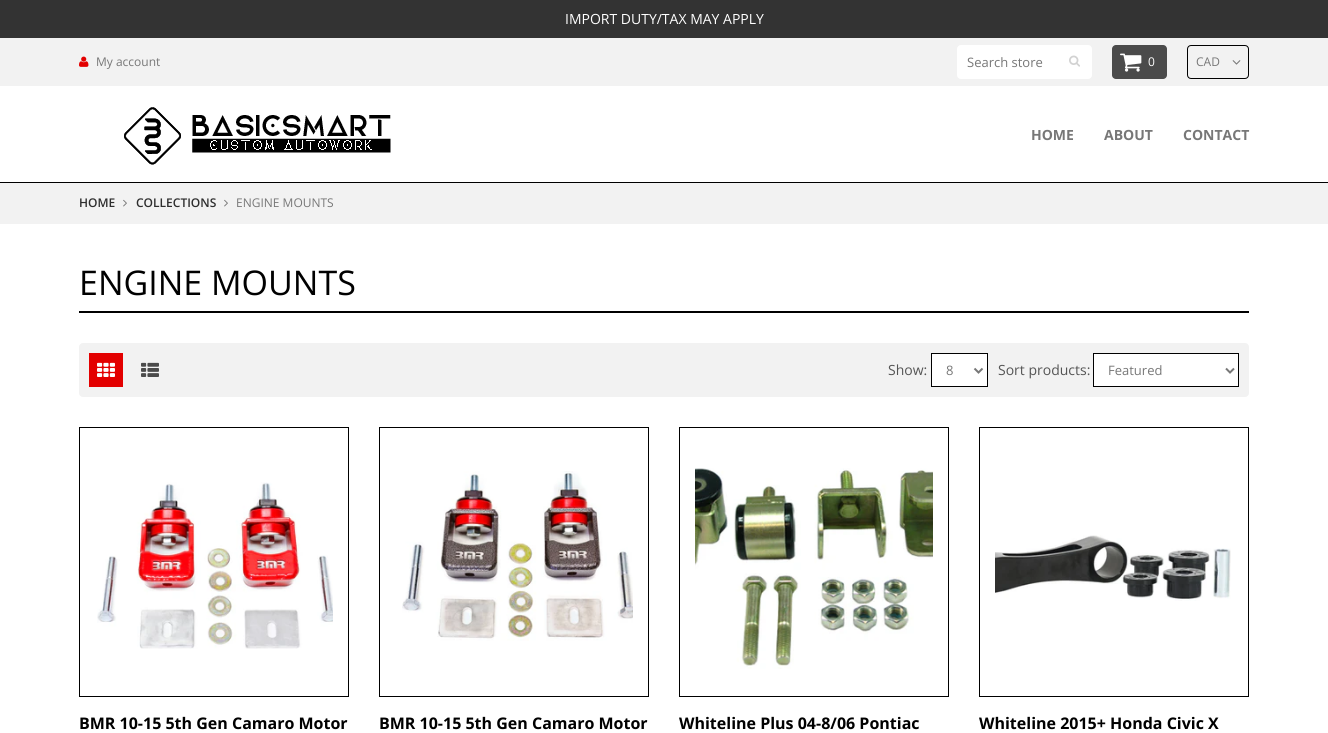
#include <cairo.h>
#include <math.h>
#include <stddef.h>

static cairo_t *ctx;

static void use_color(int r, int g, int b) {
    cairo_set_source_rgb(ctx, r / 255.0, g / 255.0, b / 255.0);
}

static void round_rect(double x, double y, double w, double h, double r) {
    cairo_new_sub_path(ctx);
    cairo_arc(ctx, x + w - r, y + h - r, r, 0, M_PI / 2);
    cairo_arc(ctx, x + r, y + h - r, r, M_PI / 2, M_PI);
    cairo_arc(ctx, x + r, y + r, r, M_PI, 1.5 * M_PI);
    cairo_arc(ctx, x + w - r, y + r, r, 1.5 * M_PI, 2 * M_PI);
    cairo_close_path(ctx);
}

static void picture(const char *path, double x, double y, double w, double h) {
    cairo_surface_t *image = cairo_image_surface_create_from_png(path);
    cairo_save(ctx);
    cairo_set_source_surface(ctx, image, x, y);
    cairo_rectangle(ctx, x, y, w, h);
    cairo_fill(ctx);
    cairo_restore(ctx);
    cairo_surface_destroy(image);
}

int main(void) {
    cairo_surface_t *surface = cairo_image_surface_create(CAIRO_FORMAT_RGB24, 1328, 733);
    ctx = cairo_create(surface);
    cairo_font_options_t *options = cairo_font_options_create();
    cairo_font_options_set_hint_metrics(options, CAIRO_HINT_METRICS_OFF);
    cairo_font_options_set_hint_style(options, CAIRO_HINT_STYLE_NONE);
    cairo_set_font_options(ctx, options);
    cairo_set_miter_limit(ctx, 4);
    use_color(51, 51, 51);
    cairo_paint(ctx);
    cairo_select_font_face(ctx, "Open Sans", CAIRO_FONT_SLANT_NORMAL, CAIRO_FONT_WEIGHT_NORMAL);
    cairo_set_font_size(ctx, 14);
    use_color(255, 255, 255);
    cairo_move_to(ctx, 565, 24);
    cairo_show_text(ctx, "IMPORT DUTY/TAX MAY APPLY");
    use_color(242, 242, 242);
    cairo_rectangle(ctx, 0, 38, 1328, 48);
    cairo_fill(ctx);
    picture("img1.png", 79, 56, 10, 11);
    cairo_set_font_size(ctx, 12);
    use_color(119, 119, 119);
    cairo_move_to(ctx, 96, 66);
    cairo_show_text(ctx, "My account");
    use_color(255, 255, 255);
    round_rect(957, 45, 135, 34, 4);
    cairo_fill(ctx);
    cairo_set_font_size(ctx, 13);
    use_color(119, 119, 119);
    cairo_move_to(ctx, 967, 67);
    cairo_show_text(ctx, "Search store");
    picture("img2.png", 1069, 55, 11, 12);
    use_color(75, 75, 75);
    round_rect(1112, 45, 55, 34, 4);
    cairo_fill(ctx);
    picture("img3.png", 1120, 53, 22, 19);
    cairo_set_font_size(ctx, 12);
    use_color(255, 255, 255);
    cairo_move_to(ctx, 1148, 66);
    cairo_show_text(ctx, "0");
    round_rect(1187.5, 45.5, 61, 33, 3.5);
    use_color(0, 0, 0);
    cairo_set_line_width(ctx, 1);
    cairo_stroke(ctx);
    use_color(119, 119, 119);
    cairo_move_to(ctx, 1196, 66);
    cairo_show_text(ctx, "CAD");
    picture("img4.png", 1232, 60, 9, 5);
    use_color(0, 0, 0);
    cairo_rectangle(ctx, 0, 182, 1328, 1);
    cairo_fill(ctx);
    use_color(255, 255, 255);
    cairo_rectangle(ctx, 0, 86, 1328, 96);
    cairo_fill(ctx);
    picture("img5.png", 124, 107, 267, 58);
    cairo_select_font_face(ctx, "Open Sans", CAIRO_FONT_SLANT_NORMAL, CAIRO_FONT_WEIGHT_BOLD);
    cairo_set_font_size(ctx, 14);
    use_color(119, 119, 119);
    cairo_move_to(ctx, 1031, 140);
    cairo_show_text(ctx, "HOME");
    cairo_move_to(ctx, 1104, 140);
    cairo_show_text(ctx, "ABOUT");
    cairo_move_to(ctx, 1183, 140);
    cairo_show_text(ctx, "CONTACT");
    use_color(255, 255, 255);
    cairo_rectangle(ctx, 0, 224, 1328, 509);
    cairo_fill(ctx);
    use_color(242, 242, 242);
    cairo_rectangle(ctx, 0, 183, 1328, 41);
    cairo_fill(ctx);
    cairo_select_font_face(ctx, "Open Sans SemiBold", CAIRO_FONT_SLANT_NORMAL, CAIRO_FONT_WEIGHT_NORMAL);
    cairo_set_font_size(ctx, 12);
    use_color(46, 46, 46);
    cairo_move_to(ctx, 79, 207);
    cairo_show_text(ctx, "HOME");
    picture("img6.png", 123, 199, 4, 8);
    cairo_move_to(ctx, 136, 207);
    cairo_show_text(ctx, "COLLECTIONS");
    picture("img6.png", 224, 199, 4, 8);
    cairo_select_font_face(ctx, "Open Sans", CAIRO_FONT_SLANT_NORMAL, CAIRO_FONT_WEIGHT_NORMAL);
    use_color(119, 119, 119);
    cairo_move_to(ctx, 236, 207);
    cairo_show_text(ctx, "ENGINE MOUNTS");
    use_color(0, 0, 0);
    cairo_rectangle(ctx, 79, 311, 1170, 2);
    cairo_fill(ctx);
    cairo_set_font_size(ctx, 34);
    cairo_move_to(ctx, 79, 295);
    cairo_show_text(ctx, "ENGINE MOUNTS");
    use_color(242, 242, 242);
    round_rect(79, 343, 1170, 54, 4);
    cairo_fill(ctx);
    use_color(227, 0, 0);
    cairo_rectangle(ctx, 89, 353, 34, 34);
    cairo_fill(ctx);
    picture("img7.png", 97, 362, 18, 15);
    picture("img8.png", 141, 362, 18, 15);
    cairo_set_font_size(ctx, 14);
    use_color(85, 85, 85);
    cairo_move_to(ctx, 888, 375);
    cairo_show_text(ctx, "Show:");
    use_color(255, 255, 255);
    cairo_rectangle(ctx, 931.5, 353.5, 56, 33);
    cairo_fill_preserve(ctx);
    use_color(0, 0, 0);
    cairo_stroke(ctx);
    cairo_new_path(ctx);
    cairo_move_to(ctx, 974.5, 368.5);
    cairo_line_to(ctx, 978.5, 372.5);
    cairo_line_to(ctx, 982.5, 368.5);
    use_color(119, 119, 119);
    cairo_set_line_width(ctx, 2);
    cairo_stroke(ctx);
    cairo_set_font_size(ctx, 13);
    cairo_move_to(ctx, 946, 375);
    cairo_show_text(ctx, "8");
    cairo_set_font_size(ctx, 14);
    use_color(85, 85, 85);
    cairo_move_to(ctx, 998, 375);
    cairo_show_text(ctx, "Sort products:");
    use_color(255, 255, 255);
    cairo_rectangle(ctx, 1093.5, 353.5, 145, 33);
    cairo_fill_preserve(ctx);
    use_color(0, 0, 0);
    cairo_set_line_width(ctx, 1);
    cairo_stroke(ctx);
    cairo_new_path(ctx);
    cairo_move_to(ctx, 1226, 368.5);
    cairo_line_to(ctx, 1230, 372.5);
    cairo_line_to(ctx, 1234, 368.5);
    use_color(119, 119, 119);
    cairo_set_line_width(ctx, 2);
    cairo_stroke(ctx);
    cairo_set_font_size(ctx, 13);
    cairo_move_to(ctx, 1108, 375);
    cairo_show_text(ctx, "Featured");
    cairo_rectangle(ctx, 79.5, 427.5, 269, 269);
    use_color(0, 0, 0);
    cairo_set_line_width(ctx, 1);
    cairo_stroke(ctx);
    picture("img9.png", 97, 482, 236, 167);
    cairo_select_font_face(ctx, "Open Sans", CAIRO_FONT_SLANT_NORMAL, CAIRO_FONT_WEIGHT_BOLD);
    cairo_set_font_size(ctx, 16);
    cairo_move_to(ctx, 79, 729);
    cairo_show_text(ctx, "BMR 10-15 5th Gen Camaro Motor");
    cairo_rectangle(ctx, 379.5, 427.5, 269, 269);
    cairo_stroke(ctx);
    picture("img10.png", 402, 471, 231, 170);
    cairo_move_to(ctx, 379, 729);
    cairo_show_text(ctx, "BMR 10-15 5th Gen Camaro Motor");
    cairo_rectangle(ctx, 679.5, 427.5, 269, 269);
    cairo_stroke(ctx);
    picture("img11.png", 695, 468, 238, 201);
    cairo_move_to(ctx, 679, 729);
    cairo_show_text(ctx, "Whiteline Plus 04-8/06 Pontiac");
    cairo_rectangle(ctx, 979.5, 427.5, 269, 269);
    cairo_stroke(ctx);
    picture("img12.png", 995, 535, 236, 66);
    cairo_move_to(ctx, 979, 729);
    cairo_show_text(ctx, "Whiteline 2015+ Honda Civic X");
    cairo_surface_write_to_png(surface, "result.png");
    cairo_font_options_destroy(options);
    cairo_destroy(ctx);
    cairo_surface_destroy(surface);
    return 0;
}
